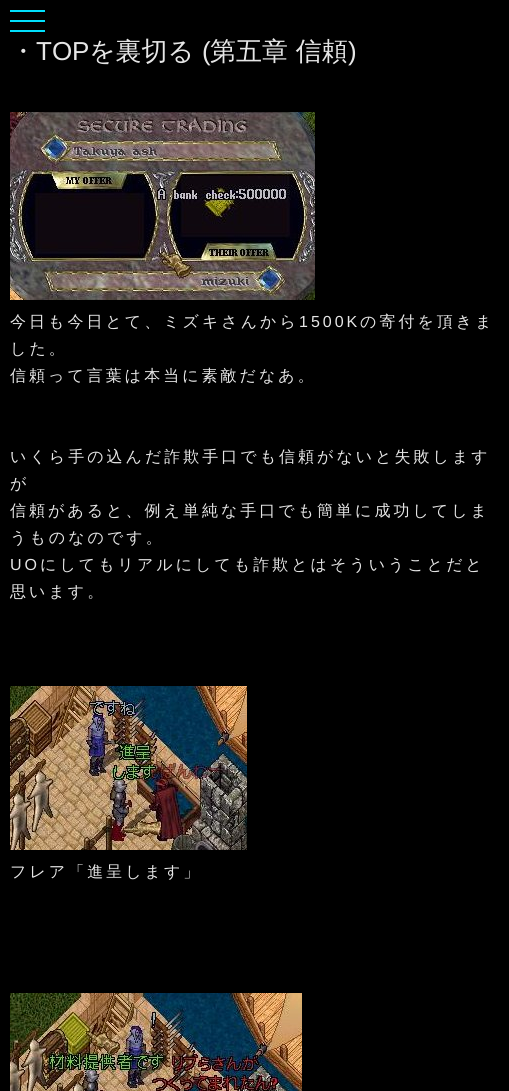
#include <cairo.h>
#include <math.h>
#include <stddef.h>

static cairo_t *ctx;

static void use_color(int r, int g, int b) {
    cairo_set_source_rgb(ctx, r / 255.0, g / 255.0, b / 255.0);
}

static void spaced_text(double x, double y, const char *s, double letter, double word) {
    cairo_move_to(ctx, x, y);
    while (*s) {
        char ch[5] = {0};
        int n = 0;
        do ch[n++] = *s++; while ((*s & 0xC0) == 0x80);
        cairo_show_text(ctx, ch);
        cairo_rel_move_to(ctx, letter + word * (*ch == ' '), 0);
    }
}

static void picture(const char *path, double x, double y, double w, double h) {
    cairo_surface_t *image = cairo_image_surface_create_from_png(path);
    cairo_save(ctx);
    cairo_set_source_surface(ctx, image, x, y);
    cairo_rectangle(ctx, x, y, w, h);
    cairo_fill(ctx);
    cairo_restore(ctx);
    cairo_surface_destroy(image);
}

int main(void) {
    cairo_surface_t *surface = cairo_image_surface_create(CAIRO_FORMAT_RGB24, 509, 1091);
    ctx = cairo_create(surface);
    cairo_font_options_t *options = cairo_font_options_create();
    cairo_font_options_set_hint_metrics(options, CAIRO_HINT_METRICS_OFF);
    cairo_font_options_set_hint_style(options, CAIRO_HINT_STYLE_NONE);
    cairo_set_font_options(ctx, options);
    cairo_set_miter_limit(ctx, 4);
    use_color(0, 0, 0);
    cairo_paint(ctx);
    use_color(0, 223, 252);
    cairo_rectangle(ctx, 10, 10, 35, 2);
    cairo_fill(ctx);
    cairo_rectangle(ctx, 10, 20, 35, 2);
    cairo_fill(ctx);
    cairo_rectangle(ctx, 10, 30, 35, 2);
    cairo_fill(ctx);
    cairo_select_font_face(ctx, "WenQuanYi Zen Hei Medium", CAIRO_FONT_SLANT_NORMAL, CAIRO_FONT_WEIGHT_NORMAL);
    cairo_set_font_size(ctx, 26);
    use_color(230, 230, 230);
    cairo_move_to(ctx, 10, 60);
    cairo_show_text(ctx, "・");
    cairo_select_font_face(ctx, "Liberation Sans", CAIRO_FONT_SLANT_NORMAL, CAIRO_FONT_WEIGHT_NORMAL);
    cairo_move_to(ctx, 36, 60);
    cairo_show_text(ctx, "TOP");
    cairo_select_font_face(ctx, "WenQuanYi Zen Hei Medium", CAIRO_FONT_SLANT_NORMAL, CAIRO_FONT_WEIGHT_NORMAL);
    cairo_move_to(ctx, 89, 60);
    cairo_show_text(ctx, "を裏切る");
    cairo_select_font_face(ctx, "Liberation Sans", CAIRO_FONT_SLANT_NORMAL, CAIRO_FONT_WEIGHT_NORMAL);
    cairo_move_to(ctx, 202, 60);
    cairo_show_text(ctx, "(");
    cairo_select_font_face(ctx, "WenQuanYi Zen Hei Medium", CAIRO_FONT_SLANT_NORMAL, CAIRO_FONT_WEIGHT_NORMAL);
    cairo_move_to(ctx, 210, 60);
    cairo_show_text(ctx, "第五章 信頼");
    cairo_select_font_face(ctx, "Liberation Sans", CAIRO_FONT_SLANT_NORMAL, CAIRO_FONT_WEIGHT_NORMAL);
    cairo_move_to(ctx, 348, 60);
    cairo_show_text(ctx, ")");
    picture("img1.png", 10, 112, 305, 188);
    cairo_select_font_face(ctx, "WenQuanYi Zen Hei Medium", CAIRO_FONT_SLANT_NORMAL, CAIRO_FONT_WEIGHT_NORMAL);
    cairo_set_font_size(ctx, 16);
    spaced_text(10, 327, "今日も今日とて、ミズキさんから", 3, 0);
    cairo_select_font_face(ctx, "Liberation Sans", CAIRO_FONT_SLANT_NORMAL, CAIRO_FONT_WEIGHT_NORMAL);
    spaced_text(299, 327, "1500K", 3, 0);
    cairo_select_font_face(ctx, "WenQuanYi Zen Hei Medium", CAIRO_FONT_SLANT_NORMAL, CAIRO_FONT_WEIGHT_NORMAL);
    spaced_text(360, 327, "の寄付を頂きま", 3, 0);
    spaced_text(10, 354, "した。", 3, 0);
    spaced_text(10, 381, "信頼って言葉は本当に素敵だなあ。", 3, 0);
    spaced_text(10, 462, "いくら手の込んだ詐欺手口でも信頼がないと失敗します", 3, 0);
    spaced_text(10, 489, "が", 3, 0);
    spaced_text(10, 516, "信頼があると、例え単純な手口でも簡単に成功してしま", 3, 0);
    spaced_text(10, 543, "うものなのです。", 3, 0);
    cairo_select_font_face(ctx, "Liberation Sans", CAIRO_FONT_SLANT_NORMAL, CAIRO_FONT_WEIGHT_NORMAL);
    spaced_text(10, 570, "UO", 3, 0);
    cairo_select_font_face(ctx, "WenQuanYi Zen Hei Medium", CAIRO_FONT_SLANT_NORMAL, CAIRO_FONT_WEIGHT_NORMAL);
    spaced_text(40, 570, "にしてもリアルにしても詐欺とはそういうことだと", 3, 0);
    spaced_text(10, 597, "思います。", 3, 0);
    picture("img2.png", 10, 686, 237, 164);
    spaced_text(10, 877, "フレア「進呈します」", 3, 0);
    picture("img3.png", 10, 993, 292, 98);
    cairo_surface_write_to_png(surface, "result.png");
    cairo_font_options_destroy(options);
    cairo_destroy(ctx);
    cairo_surface_destroy(surface);
    return 0;
}
